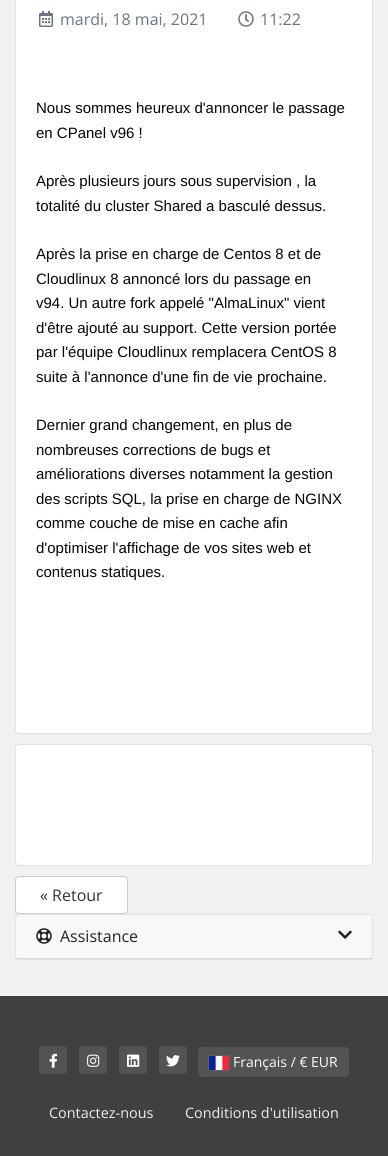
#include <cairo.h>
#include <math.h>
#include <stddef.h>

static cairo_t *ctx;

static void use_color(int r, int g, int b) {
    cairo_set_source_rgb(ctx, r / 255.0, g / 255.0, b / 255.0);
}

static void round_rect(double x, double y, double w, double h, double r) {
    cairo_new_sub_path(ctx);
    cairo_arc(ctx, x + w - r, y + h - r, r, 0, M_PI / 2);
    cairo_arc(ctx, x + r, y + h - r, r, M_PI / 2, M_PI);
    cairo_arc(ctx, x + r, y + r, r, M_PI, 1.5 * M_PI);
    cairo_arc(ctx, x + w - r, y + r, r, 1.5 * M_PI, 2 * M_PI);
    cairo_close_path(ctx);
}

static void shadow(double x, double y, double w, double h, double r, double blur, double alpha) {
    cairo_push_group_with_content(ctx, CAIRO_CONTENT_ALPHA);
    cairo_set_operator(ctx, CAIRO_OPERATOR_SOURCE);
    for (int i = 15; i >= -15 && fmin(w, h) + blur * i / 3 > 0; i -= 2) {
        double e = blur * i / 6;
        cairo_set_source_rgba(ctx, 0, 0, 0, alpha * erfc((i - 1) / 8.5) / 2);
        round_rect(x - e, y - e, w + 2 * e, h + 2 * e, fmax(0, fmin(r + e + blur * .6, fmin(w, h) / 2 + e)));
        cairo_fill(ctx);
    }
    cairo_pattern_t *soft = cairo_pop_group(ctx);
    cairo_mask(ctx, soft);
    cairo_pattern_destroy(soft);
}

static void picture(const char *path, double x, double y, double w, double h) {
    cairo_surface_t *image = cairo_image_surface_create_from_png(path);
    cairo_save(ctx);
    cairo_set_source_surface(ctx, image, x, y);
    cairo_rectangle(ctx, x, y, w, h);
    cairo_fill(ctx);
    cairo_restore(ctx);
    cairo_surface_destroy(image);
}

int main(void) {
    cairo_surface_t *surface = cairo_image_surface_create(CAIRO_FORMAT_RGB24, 388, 1156);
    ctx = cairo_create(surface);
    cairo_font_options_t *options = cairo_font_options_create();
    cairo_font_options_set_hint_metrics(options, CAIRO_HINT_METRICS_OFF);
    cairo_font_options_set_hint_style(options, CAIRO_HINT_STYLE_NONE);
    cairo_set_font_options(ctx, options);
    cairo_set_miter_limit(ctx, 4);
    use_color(241, 241, 241);
    cairo_paint(ctx);
    use_color(255, 255, 255);
    round_rect(15, -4, 358, 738, 4);
    cairo_fill(ctx);
    round_rect(15.5, -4.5, 357, 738, 3.5);
    cairo_set_source_rgba(ctx, 0, 0, 0, 0.12);
    cairo_set_line_width(ctx, 1);
    cairo_stroke(ctx);
    picture("img1.png", 39, 11, 14, 16);
    cairo_select_font_face(ctx, "Open Sans", CAIRO_FONT_SLANT_NORMAL, CAIRO_FONT_WEIGHT_NORMAL);
    cairo_set_font_size(ctx, 16);
    use_color(108, 117, 125);
    cairo_move_to(ctx, 60, 25);
    cairo_show_text(ctx, "mardi, 18 mai, 2021");
    picture("img2.png", 238, 11, 16, 16);
    cairo_move_to(ctx, 260, 25);
    cairo_show_text(ctx, "11:22");
    cairo_select_font_face(ctx, "Liberation Sans", CAIRO_FONT_SLANT_NORMAL, CAIRO_FONT_WEIGHT_NORMAL);
    cairo_set_font_size(ctx, 15);
    use_color(5, 5, 5);
    cairo_move_to(ctx, 36, 113);
    cairo_show_text(ctx, "Nous sommes heureux d'annoncer le passage");
    cairo_move_to(ctx, 36, 138);
    cairo_show_text(ctx, "en CPanel v96 !");
    cairo_move_to(ctx, 36, 186);
    cairo_show_text(ctx, "Après plusieurs jours sous supervision , la");
    cairo_move_to(ctx, 36, 211);
    cairo_show_text(ctx, "totalité du cluster Shared a basculé dessus.");
    cairo_move_to(ctx, 36, 259);
    cairo_show_text(ctx, "Après la prise en charge de Centos 8 et de");
    cairo_move_to(ctx, 36, 284);
    cairo_show_text(ctx, "Cloudlinux 8 annoncé lors du passage en");
    cairo_move_to(ctx, 36, 308);
    cairo_show_text(ctx, "v94. Un autre fork appelé \"AlmaLinux\" vient");
    cairo_move_to(ctx, 36, 333);
    cairo_show_text(ctx, "d'être ajouté au support. Cette version portée");
    cairo_move_to(ctx, 36, 357);
    cairo_show_text(ctx, "par l'équipe Cloudlinux remplacera CentOS 8");
    cairo_move_to(ctx, 36, 382);
    cairo_show_text(ctx, "suite à l'annonce d'une fin de vie prochaine.");
    cairo_move_to(ctx, 36, 430);
    cairo_show_text(ctx, "Dernier grand changement, en plus de");
    cairo_move_to(ctx, 36, 455);
    cairo_show_text(ctx, "nombreuses corrections de bugs et");
    cairo_move_to(ctx, 36, 479);
    cairo_show_text(ctx, "améliorations diverses notamment la gestion");
    cairo_move_to(ctx, 36, 504);
    cairo_show_text(ctx, "des scripts SQL, la prise en charge de NGINX");
    cairo_move_to(ctx, 36, 528);
    cairo_show_text(ctx, "comme couche de mise en cache afin");
    cairo_move_to(ctx, 36, 553);
    cairo_show_text(ctx, "d'optimiser l'affichage de vos sites web et");
    cairo_move_to(ctx, 36, 577);
    cairo_show_text(ctx, "contenus statiques.");
    use_color(255, 255, 255);
    round_rect(15, 744, 358, 122, 4);
    cairo_fill(ctx);
    round_rect(15.5, 744.5, 357, 121, 3.5);
    cairo_set_source_rgba(ctx, 0, 0, 0, 0.12);
    cairo_stroke(ctx);
    use_color(255, 255, 255);
    round_rect(15.5, 876.5, 112, 37, 3.5);
    cairo_fill_preserve(ctx);
    use_color(204, 204, 204);
    cairo_stroke(ctx);
    cairo_select_font_face(ctx, "Open Sans", CAIRO_FONT_SLANT_NORMAL, CAIRO_FONT_WEIGHT_NORMAL);
    cairo_set_font_size(ctx, 16);
    use_color(51, 51, 51);
    cairo_move_to(ctx, 40, 901);
    cairo_show_text(ctx, "« Retour");
    use_color(255, 255, 255);
    round_rect(15, 914, 358, 46, 4);
    cairo_fill(ctx);
    round_rect(15.5, 914.5, 357, 45, 3.5);
    cairo_set_source_rgba(ctx, 0, 0, 0, 0.12);
    cairo_stroke(ctx);
    cairo_set_source_rgba(ctx, 0, 0, 0, 0.03);
    cairo_rectangle(ctx, 16, 915, 356, 44);
    cairo_fill(ctx);
    cairo_set_source_rgba(ctx, 0, 0, 0, 0.12);
    cairo_rectangle(ctx, 16, 958, 356, 1);
    cairo_fill(ctx);
    picture("img3.png", 36, 928, 16, 16);
    use_color(33, 37, 41);
    cairo_move_to(ctx, 60, 942);
    cairo_show_text(ctx, "Assistance");
    picture("img4.png", 338, 930, 14, 9);
    use_color(64, 64, 64);
    cairo_rectangle(ctx, 0, 996, 388, 160);
    cairo_fill(ctx);
    use_color(83, 83, 83);
    round_rect(39, 1046, 28, 28, 4);
    cairo_fill(ctx);
    picture("img5.png", 49, 1053, 9, 15);
    round_rect(79, 1046, 28, 28, 4);
    cairo_fill(ctx);
    picture("img6.png", 87, 1054, 13, 13);
    round_rect(119, 1046, 28, 28, 4);
    cairo_fill(ctx);
    picture("img7.png", 127, 1054, 13, 13);
    round_rect(159, 1046, 28, 28, 4);
    cairo_fill(ctx);
    picture("img8.png", 166, 1055, 14, 12);
    round_rect(198, 1047, 151, 30, 4);
    cairo_fill(ctx);
    use_color(136, 136, 136);
    shadow(209, 1056, 20, 14, 0, 0.5, 1);
    picture("img9.png", 209, 1056, 20, 14);
    cairo_set_font_size(ctx, 14);
    use_color(255, 255, 255);
    cairo_move_to(ctx, 233, 1067);
    cairo_show_text(ctx, "Français / € EUR");
    cairo_set_font_size(ctx, 14.4);
    use_color(238, 238, 238);
    cairo_move_to(ctx, 49, 1118);
    cairo_show_text(ctx, "Contactez-nous");
    cairo_move_to(ctx, 185, 1118);
    cairo_show_text(ctx, "Conditions d'utilisation");
    cairo_surface_write_to_png(surface, "result.png");
    cairo_font_options_destroy(options);
    cairo_destroy(ctx);
    cairo_surface_destroy(surface);
    return 0;
}
